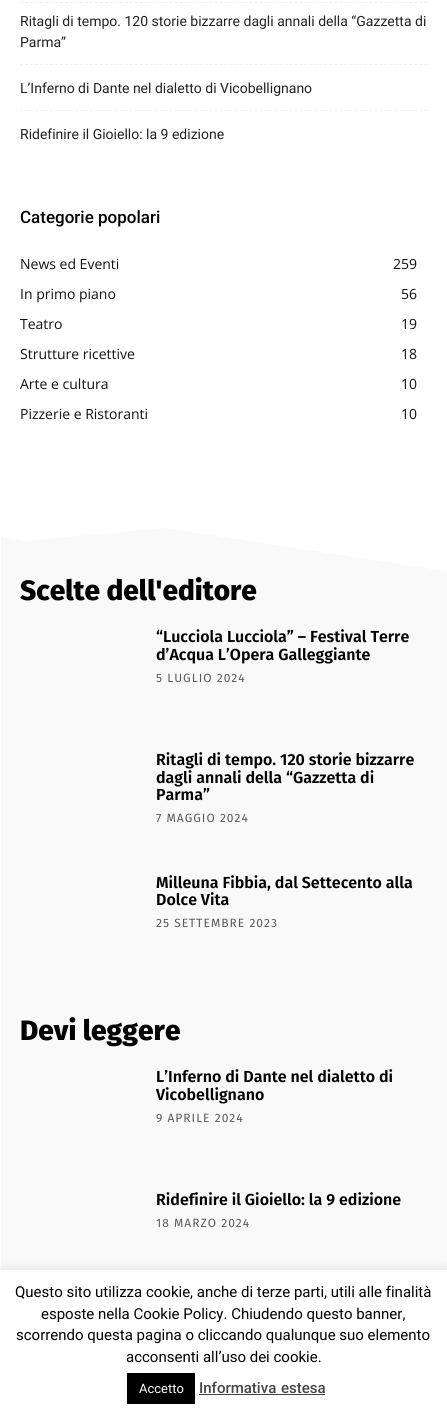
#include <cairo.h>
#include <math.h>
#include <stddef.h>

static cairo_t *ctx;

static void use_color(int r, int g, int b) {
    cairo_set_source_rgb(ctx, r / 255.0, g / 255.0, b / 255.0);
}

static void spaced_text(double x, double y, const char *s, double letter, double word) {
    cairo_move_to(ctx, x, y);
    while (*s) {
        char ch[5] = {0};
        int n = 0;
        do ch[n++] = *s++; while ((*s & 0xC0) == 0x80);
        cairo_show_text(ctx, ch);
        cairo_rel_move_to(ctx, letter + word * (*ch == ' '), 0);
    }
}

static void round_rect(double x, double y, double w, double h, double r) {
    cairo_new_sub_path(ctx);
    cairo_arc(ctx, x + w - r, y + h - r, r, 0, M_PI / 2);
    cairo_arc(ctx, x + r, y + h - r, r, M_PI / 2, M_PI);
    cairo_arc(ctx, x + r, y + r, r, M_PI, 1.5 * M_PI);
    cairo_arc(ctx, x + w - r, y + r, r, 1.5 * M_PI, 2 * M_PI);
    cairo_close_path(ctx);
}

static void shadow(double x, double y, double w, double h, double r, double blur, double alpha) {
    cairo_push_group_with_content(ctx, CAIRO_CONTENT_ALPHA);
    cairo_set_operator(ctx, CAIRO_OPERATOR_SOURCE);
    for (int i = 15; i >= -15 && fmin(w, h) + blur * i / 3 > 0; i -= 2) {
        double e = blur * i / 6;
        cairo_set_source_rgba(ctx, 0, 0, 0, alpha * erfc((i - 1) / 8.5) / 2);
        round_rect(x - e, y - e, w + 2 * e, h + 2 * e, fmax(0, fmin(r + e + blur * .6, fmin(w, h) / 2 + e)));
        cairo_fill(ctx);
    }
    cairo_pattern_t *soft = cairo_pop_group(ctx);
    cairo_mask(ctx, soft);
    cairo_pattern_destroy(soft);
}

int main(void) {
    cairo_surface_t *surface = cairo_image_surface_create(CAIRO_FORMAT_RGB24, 447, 1416);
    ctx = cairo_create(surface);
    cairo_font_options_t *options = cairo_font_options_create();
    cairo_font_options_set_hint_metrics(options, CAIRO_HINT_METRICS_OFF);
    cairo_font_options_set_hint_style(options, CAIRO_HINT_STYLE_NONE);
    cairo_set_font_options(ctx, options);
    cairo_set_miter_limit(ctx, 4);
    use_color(255, 255, 255);
    cairo_paint(ctx);
    cairo_new_path(ctx);
    cairo_move_to(ctx, 20, 2.5);
    cairo_line_to(ctx, 427, 2.5);
    use_color(241, 241, 241);
    cairo_set_line_width(ctx, 1);
    cairo_set_dash(ctx, (double[]){3, 1.99}, 2, 0);
    cairo_stroke(ctx);
    cairo_new_path(ctx);
    cairo_move_to(ctx, 20, 64.5);
    cairo_line_to(ctx, 427, 64.5);
    cairo_stroke(ctx);
    cairo_select_font_face(ctx, "Roboto", CAIRO_FONT_SLANT_NORMAL, CAIRO_FONT_WEIGHT_NORMAL);
    cairo_set_font_size(ctx, 14);
    use_color(34, 34, 34);
    cairo_move_to(ctx, 20, 26);
    cairo_show_text(ctx, "Ritagli di tempo. 120 storie bizzarre dagli annali della “Gazzetta di");
    cairo_move_to(ctx, 20, 47);
    cairo_show_text(ctx, "Parma”");
    cairo_new_path(ctx);
    cairo_move_to(ctx, 20, 110.5);
    cairo_line_to(ctx, 427, 110.5);
    use_color(241, 241, 241);
    cairo_stroke(ctx);
    use_color(34, 34, 34);
    cairo_move_to(ctx, 20, 93);
    cairo_show_text(ctx, "L’Inferno di Dante nel dialetto di Vicobellignano");
    cairo_move_to(ctx, 20, 139);
    cairo_show_text(ctx, "Ridefinire il Gioiello: la 9 edizione");
    cairo_select_font_face(ctx, "Roboto Medium", CAIRO_FONT_SLANT_NORMAL, CAIRO_FONT_WEIGHT_NORMAL);
    cairo_set_font_size(ctx, 17);
    use_color(0, 0, 0);
    cairo_move_to(ctx, 20, 223);
    cairo_show_text(ctx, "Categorie popolari");
    cairo_select_font_face(ctx, "Open Sans", CAIRO_FONT_SLANT_NORMAL, CAIRO_FONT_WEIGHT_NORMAL);
    cairo_set_font_size(ctx, 14);
    use_color(17, 17, 17);
    cairo_move_to(ctx, 20, 269);
    cairo_show_text(ctx, "News ed Eventi");
    cairo_move_to(ctx, 393, 269);
    cairo_show_text(ctx, "259");
    cairo_move_to(ctx, 20, 299);
    cairo_show_text(ctx, "In primo piano");
    cairo_move_to(ctx, 401, 299);
    cairo_show_text(ctx, "56");
    cairo_move_to(ctx, 20, 329);
    cairo_show_text(ctx, "Teatro");
    cairo_move_to(ctx, 401, 329);
    cairo_show_text(ctx, "19");
    cairo_move_to(ctx, 20, 359);
    cairo_show_text(ctx, "Strutture ricettive");
    cairo_move_to(ctx, 401, 359);
    cairo_show_text(ctx, "18");
    cairo_move_to(ctx, 20, 389);
    cairo_show_text(ctx, "Arte e cultura");
    cairo_move_to(ctx, 401, 389);
    cairo_show_text(ctx, "10");
    cairo_move_to(ctx, 20, 419);
    cairo_show_text(ctx, "Pizzerie e Ristoranti");
    cairo_move_to(ctx, 401, 419);
    cairo_show_text(ctx, "10");
    cairo_save(ctx);
    cairo_rectangle(ctx, 1, 475, 446, 100);
    cairo_clip(ctx);
    use_color(249, 249, 249);
    cairo_new_path(ctx);
    cairo_move_to(ctx, -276, 605);
    cairo_line_to(ctx, -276, 524);
    cairo_line_to(ctx, -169, 503);
    cairo_line_to(ctx, 24, 541);
    cairo_line_to(ctx, 164, 528);
    cairo_line_to(ctx, 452, 572);
    cairo_line_to(ctx, 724, 515);
    cairo_line_to(ctx, 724, 605);
    cairo_close_path(ctx);
    cairo_fill(ctx);
    cairo_restore(ctx);
    use_color(249, 249, 249);
    cairo_rectangle(ctx, 1, 575, 446, 695);
    cairo_fill(ctx);
    cairo_select_font_face(ctx, "Fira Sans ExtraBold", CAIRO_FONT_SLANT_NORMAL, CAIRO_FONT_WEIGHT_NORMAL);
    cairo_set_font_size(ctx, 28);
    use_color(0, 0, 0);
    cairo_move_to(ctx, 20, 600);
    cairo_show_text(ctx, "Scelte dell'editore");
    cairo_select_font_face(ctx, "Fira Sans SemiBold", CAIRO_FONT_SLANT_NORMAL, CAIRO_FONT_WEIGHT_NORMAL);
    cairo_set_font_size(ctx, 16);
    cairo_move_to(ctx, 156, 642);
    cairo_show_text(ctx, "“Lucciola Lucciola” – Festival Terre");
    cairo_move_to(ctx, 156, 660);
    cairo_show_text(ctx, "d’Acqua L’Opera Galleggiante");
    cairo_select_font_face(ctx, "Fira Sans", CAIRO_FONT_SLANT_NORMAL, CAIRO_FONT_WEIGHT_NORMAL);
    cairo_set_font_size(ctx, 12);
    use_color(89, 89, 89);
    spaced_text(156, 682, "5 LUGLIO 2024", 1, 0);
    cairo_select_font_face(ctx, "Fira Sans SemiBold", CAIRO_FONT_SLANT_NORMAL, CAIRO_FONT_WEIGHT_NORMAL);
    cairo_set_font_size(ctx, 16);
    use_color(0, 0, 0);
    cairo_move_to(ctx, 156, 765);
    cairo_show_text(ctx, "Ritagli di tempo. 120 storie bizzarre");
    cairo_move_to(ctx, 156, 783);
    cairo_show_text(ctx, "dagli annali della “Gazzetta di");
    cairo_move_to(ctx, 156, 800);
    cairo_show_text(ctx, "Parma”");
    cairo_select_font_face(ctx, "Fira Sans", CAIRO_FONT_SLANT_NORMAL, CAIRO_FONT_WEIGHT_NORMAL);
    cairo_set_font_size(ctx, 12);
    use_color(89, 89, 89);
    spaced_text(156, 822, "7 MAGGIO 2024", 1, 0);
    cairo_select_font_face(ctx, "Fira Sans SemiBold", CAIRO_FONT_SLANT_NORMAL, CAIRO_FONT_WEIGHT_NORMAL);
    cairo_set_font_size(ctx, 16);
    use_color(0, 0, 0);
    cairo_move_to(ctx, 156, 888);
    cairo_show_text(ctx, "Milleuna Fibbia, dal Settecento alla");
    cairo_move_to(ctx, 156, 905);
    cairo_show_text(ctx, "Dolce Vita");
    cairo_select_font_face(ctx, "Fira Sans", CAIRO_FONT_SLANT_NORMAL, CAIRO_FONT_WEIGHT_NORMAL);
    cairo_set_font_size(ctx, 12);
    use_color(89, 89, 89);
    spaced_text(156, 927, "25 SETTEMBRE 2023", 1, 0);
    cairo_select_font_face(ctx, "Fira Sans ExtraBold", CAIRO_FONT_SLANT_NORMAL, CAIRO_FONT_WEIGHT_NORMAL);
    cairo_set_font_size(ctx, 28);
    use_color(0, 0, 0);
    cairo_move_to(ctx, 20, 1040);
    cairo_show_text(ctx, "Devi leggere");
    cairo_select_font_face(ctx, "Fira Sans SemiBold", CAIRO_FONT_SLANT_NORMAL, CAIRO_FONT_WEIGHT_NORMAL);
    cairo_set_font_size(ctx, 16);
    cairo_move_to(ctx, 156, 1082);
    cairo_show_text(ctx, "L’Inferno di Dante nel dialetto di");
    cairo_move_to(ctx, 156, 1100);
    cairo_show_text(ctx, "Vicobellignano");
    cairo_select_font_face(ctx, "Fira Sans", CAIRO_FONT_SLANT_NORMAL, CAIRO_FONT_WEIGHT_NORMAL);
    cairo_set_font_size(ctx, 12);
    use_color(89, 89, 89);
    spaced_text(156, 1122, "9 APRILE 2024", 1, 0);
    cairo_select_font_face(ctx, "Fira Sans SemiBold", CAIRO_FONT_SLANT_NORMAL, CAIRO_FONT_WEIGHT_NORMAL);
    cairo_set_font_size(ctx, 16);
    use_color(0, 0, 0);
    cairo_move_to(ctx, 156, 1205);
    cairo_show_text(ctx, "Ridefinire il Gioiello: la 9 edizione");
    cairo_select_font_face(ctx, "Fira Sans", CAIRO_FONT_SLANT_NORMAL, CAIRO_FONT_WEIGHT_NORMAL);
    cairo_set_font_size(ctx, 12);
    use_color(89, 89, 89);
    spaced_text(156, 1227, "18 MARZO 2024", 1, 0);
    use_color(172, 171, 171);
    shadow(0, 1269, 447, 146, 0, 5, 0.3);
    use_color(255, 255, 255);
    cairo_rectangle(ctx, 0, 1270, 447, 146);
    cairo_fill(ctx);
    cairo_select_font_face(ctx, "Roboto", CAIRO_FONT_SLANT_NORMAL, CAIRO_FONT_WEIGHT_NORMAL);
    cairo_set_font_size(ctx, 15);
    use_color(0, 0, 0);
    cairo_move_to(ctx, 15, 1297);
    cairo_show_text(ctx, "Questo sito utilizza cookie, anche di terze parti, utili alle finalità");
    cairo_move_to(ctx, 41, 1319);
    cairo_show_text(ctx, "esposte nella Cookie Policy. Chiudendo questo banner,");
    cairo_move_to(ctx, 16, 1340);
    cairo_show_text(ctx, "scorrendo questa pagina o cliccando qualunque suo elemento");
    cairo_move_to(ctx, 126, 1362);
    cairo_show_text(ctx, "acconsenti all’uso dei cookie.");
    cairo_rectangle(ctx, 127, 1373, 68, 31);
    cairo_fill(ctx);
    cairo_set_font_size(ctx, 13);
    use_color(255, 255, 255);
    cairo_move_to(ctx, 139, 1393);
    cairo_show_text(ctx, "Accetto");
    cairo_select_font_face(ctx, "Roboto Medium", CAIRO_FONT_SLANT_NORMAL, CAIRO_FONT_WEIGHT_NORMAL);
    cairo_set_font_size(ctx, 15);
    use_color(68, 68, 68);
    spaced_text(199, 1393, "Informativa estesa", 0, 1);
    cairo_rectangle(ctx, 199, 1394, 126, 1);
    cairo_fill(ctx);
    cairo_surface_write_to_png(surface, "result.png");
    cairo_font_options_destroy(options);
    cairo_destroy(ctx);
    cairo_surface_destroy(surface);
    return 0;
}
